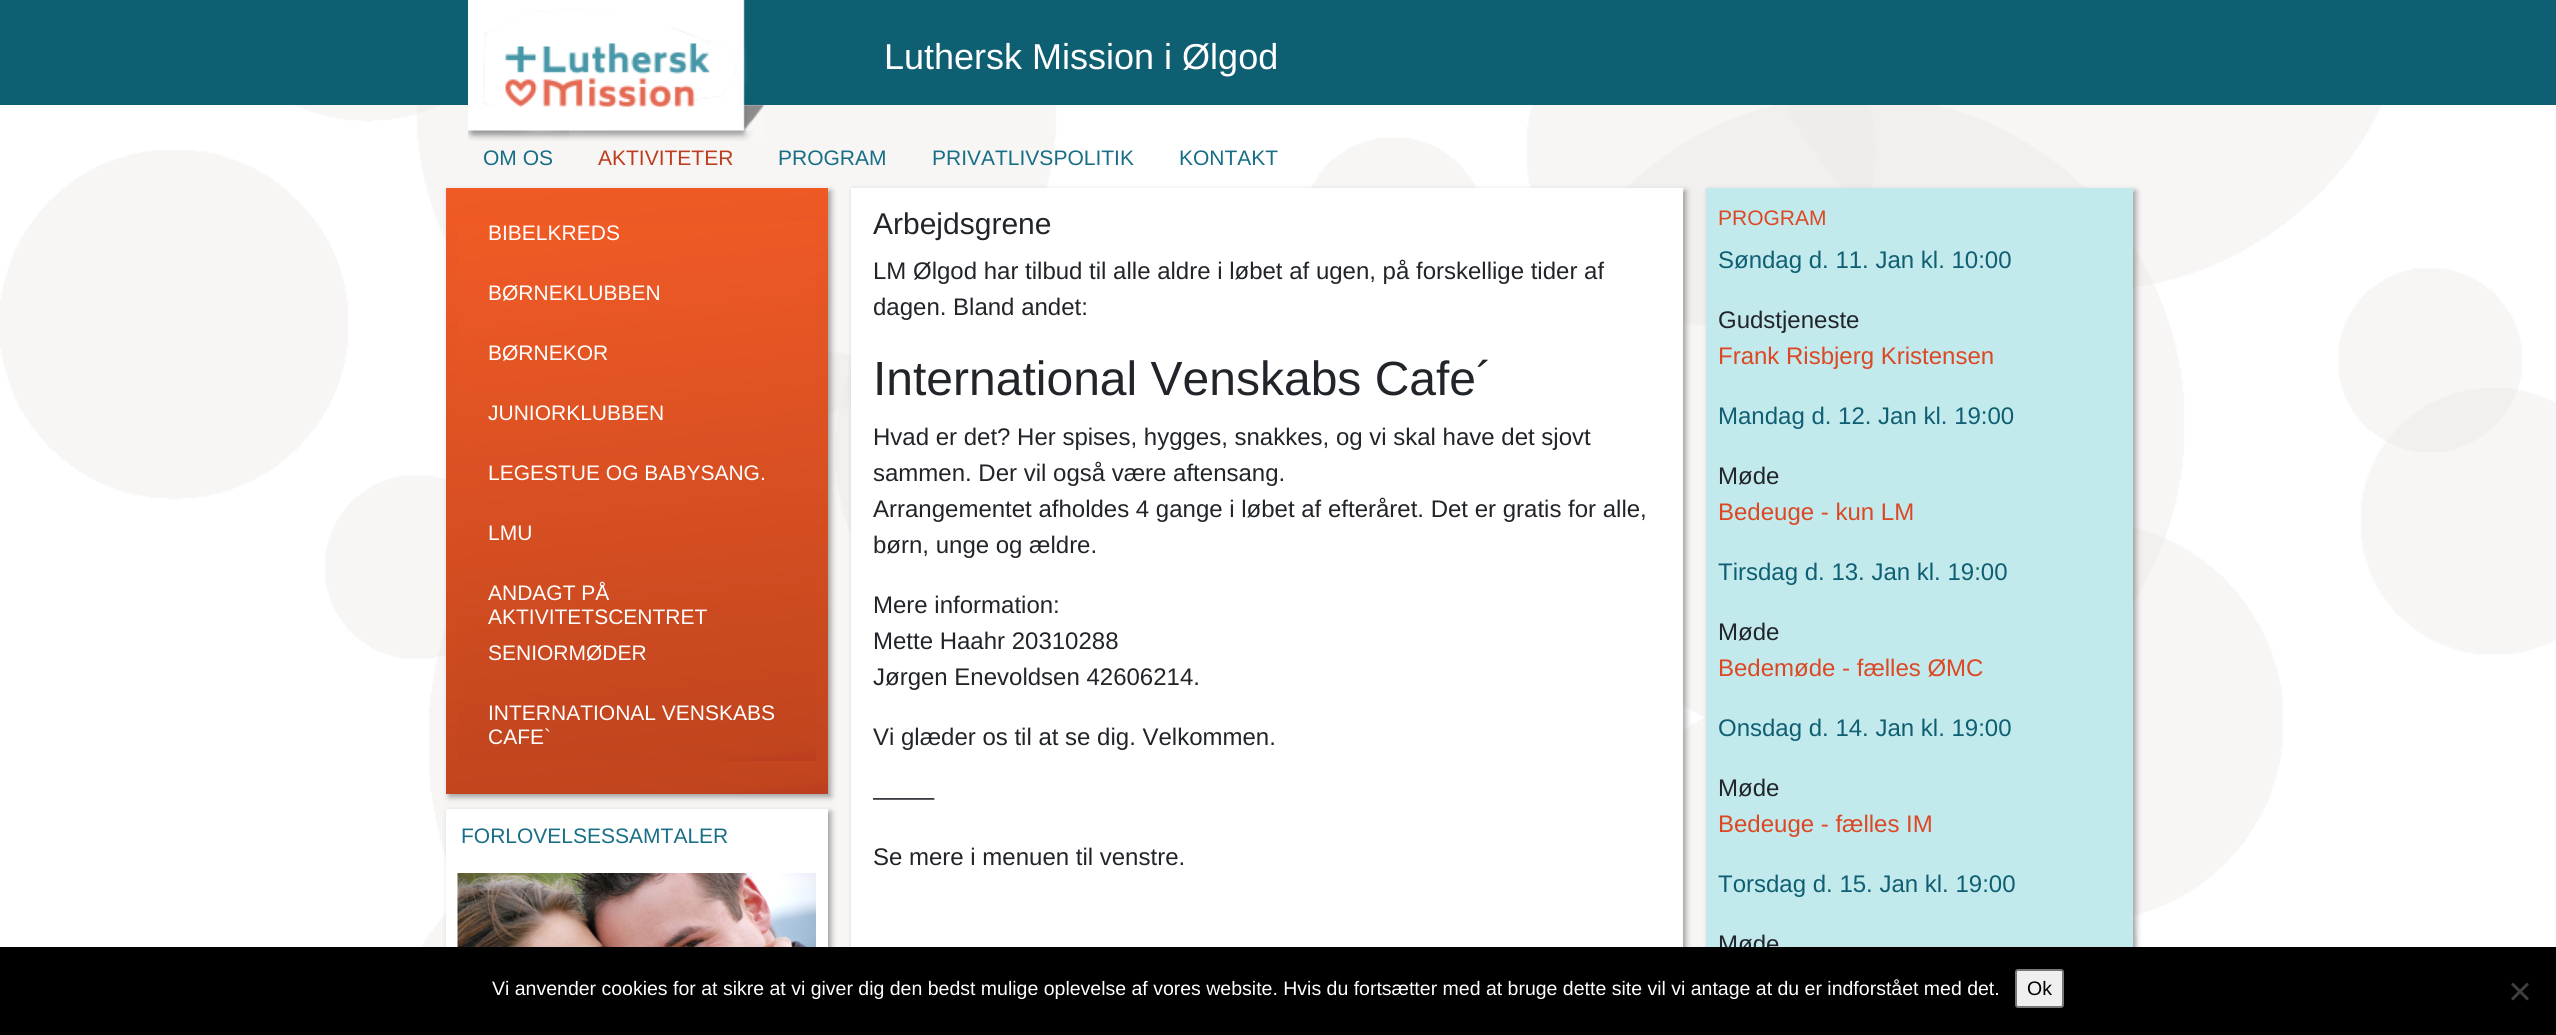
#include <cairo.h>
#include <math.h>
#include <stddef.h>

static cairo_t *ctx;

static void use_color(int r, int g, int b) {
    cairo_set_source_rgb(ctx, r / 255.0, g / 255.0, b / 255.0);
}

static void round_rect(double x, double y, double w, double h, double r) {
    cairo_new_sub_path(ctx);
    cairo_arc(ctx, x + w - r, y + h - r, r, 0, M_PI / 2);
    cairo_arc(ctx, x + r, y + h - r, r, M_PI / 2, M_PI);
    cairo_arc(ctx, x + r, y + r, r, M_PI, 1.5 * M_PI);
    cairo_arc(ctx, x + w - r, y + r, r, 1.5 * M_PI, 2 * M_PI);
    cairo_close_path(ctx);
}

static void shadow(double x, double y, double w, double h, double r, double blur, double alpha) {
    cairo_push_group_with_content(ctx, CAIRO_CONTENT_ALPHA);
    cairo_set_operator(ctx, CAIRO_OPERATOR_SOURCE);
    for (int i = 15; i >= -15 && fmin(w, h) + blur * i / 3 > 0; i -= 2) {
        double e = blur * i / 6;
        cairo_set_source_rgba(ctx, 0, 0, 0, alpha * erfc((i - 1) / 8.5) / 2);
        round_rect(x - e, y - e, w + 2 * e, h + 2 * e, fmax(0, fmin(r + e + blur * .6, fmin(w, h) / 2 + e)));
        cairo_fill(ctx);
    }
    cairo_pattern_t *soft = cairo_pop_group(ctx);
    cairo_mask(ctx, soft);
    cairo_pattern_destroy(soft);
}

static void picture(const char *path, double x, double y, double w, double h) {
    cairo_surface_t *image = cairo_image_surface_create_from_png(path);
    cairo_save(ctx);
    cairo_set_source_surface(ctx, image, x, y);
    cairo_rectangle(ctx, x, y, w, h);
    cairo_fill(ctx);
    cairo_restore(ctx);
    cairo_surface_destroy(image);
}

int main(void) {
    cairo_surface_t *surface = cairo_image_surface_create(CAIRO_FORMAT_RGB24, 2556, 1035);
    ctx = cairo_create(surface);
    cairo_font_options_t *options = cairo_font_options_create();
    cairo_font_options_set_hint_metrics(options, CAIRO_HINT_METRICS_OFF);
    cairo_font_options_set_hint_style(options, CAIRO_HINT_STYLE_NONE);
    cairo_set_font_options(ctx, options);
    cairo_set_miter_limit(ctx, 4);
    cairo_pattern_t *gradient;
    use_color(255, 255, 255);
    cairo_paint(ctx);
    picture("img1.png", 0, 105, 2556, 842);
    use_color(15, 95, 115);
    cairo_rectangle(ctx, 0, 0, 2556, 105);
    cairo_fill(ctx);
    picture("img2.png", 468, 0, 296, 141);
    cairo_select_font_face(ctx, "Liberation Sans", CAIRO_FONT_SLANT_NORMAL, CAIRO_FONT_WEIGHT_NORMAL);
    cairo_set_font_size(ctx, 36);
    use_color(255, 255, 255);
    cairo_move_to(ctx, 884, 69);
    cairo_show_text(ctx, "Luthersk Mission i Ølgod");
    cairo_set_source_rgba(ctx, 1, 1, 1, 0.1);
    cairo_rectangle(ctx, 468, 105, 296, 34);
    cairo_fill(ctx);
    cairo_set_font_size(ctx, 21);
    use_color(24, 110, 134);
    cairo_move_to(ctx, 483, 165);
    cairo_show_text(ctx, "OM OS");
    cairo_set_source_rgba(ctx, 1, 1, 1, 0.1);
    cairo_rectangle(ctx, 569, 128, 179, 10);
    cairo_fill(ctx);
    use_color(188, 62, 31);
    cairo_move_to(ctx, 598, 165);
    cairo_show_text(ctx, "AKTIVITETER");
    use_color(24, 110, 134);
    cairo_move_to(ctx, 778, 165);
    cairo_show_text(ctx, "PROGRAM");
    cairo_move_to(ctx, 932, 165);
    cairo_show_text(ctx, "PRIVATLIVSPOLITIK");
    cairo_move_to(ctx, 1179, 165);
    cairo_show_text(ctx, "KONTAKT");
    use_color(50, 50, 50);
    shadow(449, 191, 382, 606, 0, 3, 0.45);
    gradient = cairo_pattern_create_linear(603, 171, 670, 810);
    cairo_pattern_add_color_stop_rgba(gradient, 0, 0.945, 0.353, 0.141, 1);
    cairo_pattern_add_color_stop_rgba(gradient, 0.14, 0.918, 0.345, 0.145, 1);
    cairo_pattern_add_color_stop_rgba(gradient, 0.98, 0.753, 0.267, 0.118, 1);
    cairo_pattern_add_color_stop_rgba(gradient, 0.99, 0.737, 0.243, 0.122, 1);
    cairo_set_source(ctx, gradient);
    cairo_pattern_destroy(gradient);
    cairo_rectangle(ctx, 446, 188, 382, 606);
    cairo_fill(ctx);
    gradient = cairo_pattern_create_linear(607, 205, 667, 776);
    cairo_pattern_add_color_stop_rgba(gradient, 0, 0.945, 0.353, 0.141, 1);
    cairo_pattern_add_color_stop_rgba(gradient, 0.14, 0.918, 0.345, 0.145, 1);
    cairo_pattern_add_color_stop_rgba(gradient, 0.98, 0.753, 0.267, 0.118, 1);
    cairo_pattern_add_color_stop_rgba(gradient, 0.99, 0.737, 0.243, 0.122, 1);
    cairo_set_source(ctx, gradient);
    cairo_pattern_destroy(gradient);
    cairo_rectangle(ctx, 458, 221, 358, 540);
    cairo_fill(ctx);
    use_color(255, 255, 255);
    cairo_move_to(ctx, 488, 240);
    cairo_show_text(ctx, "BIBELKREDS");
    cairo_move_to(ctx, 488, 300);
    cairo_show_text(ctx, "BØRNEKLUBBEN");
    cairo_move_to(ctx, 488, 360);
    cairo_show_text(ctx, "BØRNEKOR");
    cairo_move_to(ctx, 488, 420);
    cairo_show_text(ctx, "JUNIORKLUBBEN");
    cairo_move_to(ctx, 488, 480);
    cairo_show_text(ctx, "LEGESTUE OG BABYSANG.");
    cairo_move_to(ctx, 488, 540);
    cairo_show_text(ctx, "LMU");
    cairo_move_to(ctx, 488, 600);
    cairo_show_text(ctx, "ANDAGT PÅ");
    cairo_move_to(ctx, 488, 624);
    cairo_show_text(ctx, "AKTIVITETSCENTRET");
    cairo_move_to(ctx, 488, 660);
    cairo_show_text(ctx, "SENIORMØDER");
    cairo_move_to(ctx, 488, 720);
    cairo_show_text(ctx, "INTERNATIONAL VENSKABS");
    cairo_move_to(ctx, 488, 744);
    cairo_show_text(ctx, "CAFE`");
    use_color(50, 50, 50);
    shadow(449, 812, 382, 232, 0, 3, 0.45);
    use_color(255, 255, 255);
    cairo_rectangle(ctx, 446, 809, 382, 138);
    cairo_fill(ctx);
    use_color(24, 110, 134);
    cairo_move_to(ctx, 461, 843);
    cairo_show_text(ctx, "FORLOVELSESSAMTALER");
    picture("img3.png", 457, 873, 359, 74);
    use_color(50, 50, 50);
    shadow(854, 191, 832, 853, 0, 3, 0.45);
    use_color(255, 255, 255);
    cairo_rectangle(ctx, 851, 188, 832, 759);
    cairo_fill(ctx);
    cairo_set_font_size(ctx, 30);
    use_color(33, 37, 41);
    cairo_move_to(ctx, 873, 234);
    cairo_show_text(ctx, "Arbejdsgrene");
    cairo_set_font_size(ctx, 24);
    cairo_move_to(ctx, 873, 279);
    cairo_show_text(ctx, "LM Ølgod har tilbud til alle aldre i løbet af ugen, på forskellige tider af");
    cairo_move_to(ctx, 873, 315);
    cairo_show_text(ctx, "dagen. Bland andet:");
    cairo_set_font_size(ctx, 48);
    cairo_move_to(ctx, 873, 395);
    cairo_show_text(ctx, "International Venskabs Cafe´");
    cairo_set_font_size(ctx, 24);
    cairo_move_to(ctx, 873, 445);
    cairo_show_text(ctx, "Hvad er det? Her spises, hygges, snakkes, og vi skal have det sjovt");
    cairo_move_to(ctx, 873, 481);
    cairo_show_text(ctx, "sammen. Der vil også være aftensang.");
    cairo_move_to(ctx, 873, 517);
    cairo_show_text(ctx, "Arrangementet afholdes 4 gange i løbet af efteråret. Det er gratis for alle,");
    cairo_move_to(ctx, 873, 553);
    cairo_show_text(ctx, "børn, unge og ældre.");
    cairo_move_to(ctx, 873, 613);
    cairo_show_text(ctx, "Mere information:");
    cairo_move_to(ctx, 873, 649);
    cairo_show_text(ctx, "Mette Haahr 20310288");
    cairo_move_to(ctx, 873, 685);
    cairo_show_text(ctx, "Jørgen Enevoldsen 42606214.");
    cairo_move_to(ctx, 873, 745);
    cairo_show_text(ctx, "Vi glæder os til at se dig. Velkommen.");
    cairo_move_to(ctx, 873, 805);
    cairo_show_text(ctx, "——–");
    cairo_move_to(ctx, 873, 865);
    cairo_show_text(ctx, "Se mere i menuen til venstre.");
    use_color(50, 50, 50);
    shadow(1709, 191, 427, 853, 0, 3, 0.45);
    use_color(194, 233, 236);
    cairo_rectangle(ctx, 1706, 188, 427, 759);
    cairo_fill(ctx);
    cairo_set_font_size(ctx, 21);
    use_color(220, 72, 35);
    cairo_move_to(ctx, 1718, 225);
    cairo_show_text(ctx, "PROGRAM");
    cairo_set_font_size(ctx, 24);
    use_color(15, 95, 115);
    cairo_move_to(ctx, 1718, 268);
    cairo_show_text(ctx, "Søndag d. 11. Jan kl. 10:00");
    use_color(33, 37, 41);
    cairo_move_to(ctx, 1718, 328);
    cairo_show_text(ctx, "Gudstjeneste");
    use_color(220, 72, 35);
    cairo_move_to(ctx, 1718, 364);
    cairo_show_text(ctx, "Frank Risbjerg Kristensen");
    use_color(15, 95, 115);
    cairo_move_to(ctx, 1718, 424);
    cairo_show_text(ctx, "Mandag d. 12. Jan kl. 19:00");
    use_color(33, 37, 41);
    cairo_move_to(ctx, 1718, 484);
    cairo_show_text(ctx, "Møde");
    use_color(220, 72, 35);
    cairo_move_to(ctx, 1718, 520);
    cairo_show_text(ctx, "Bedeuge - kun LM");
    use_color(15, 95, 115);
    cairo_move_to(ctx, 1718, 580);
    cairo_show_text(ctx, "Tirsdag d. 13. Jan kl. 19:00");
    use_color(33, 37, 41);
    cairo_move_to(ctx, 1718, 640);
    cairo_show_text(ctx, "Møde");
    use_color(220, 72, 35);
    cairo_move_to(ctx, 1718, 676);
    cairo_show_text(ctx, "Bedemøde - fælles ØMC");
    use_color(15, 95, 115);
    cairo_move_to(ctx, 1718, 736);
    cairo_show_text(ctx, "Onsdag d. 14. Jan kl. 19:00");
    use_color(33, 37, 41);
    cairo_move_to(ctx, 1718, 796);
    cairo_show_text(ctx, "Møde");
    use_color(220, 72, 35);
    cairo_move_to(ctx, 1718, 832);
    cairo_show_text(ctx, "Bedeuge - fælles IM");
    use_color(15, 95, 115);
    cairo_move_to(ctx, 1718, 892);
    cairo_show_text(ctx, "Torsdag d. 15. Jan kl. 19:00");
    use_color(33, 37, 41);
    cairo_move_to(ctx, 1718, 952);
    cairo_show_text(ctx, "Møde");
    use_color(0, 0, 0);
    cairo_rectangle(ctx, 0, 947, 2556, 88);
    cairo_fill(ctx);
    cairo_set_font_size(ctx, 19.5);
    use_color(255, 255, 255);
    cairo_move_to(ctx, 492, 995);
    cairo_show_text(ctx, "Vi anvender cookies for at sikre at vi giver dig den bedst mulige oplevelse af vores website. Hvis du fortsætter med at bruge dette site vil vi antage at du er indforstået med det.");
    use_color(239, 239, 239);
    round_rect(2016, 970, 47, 37, 2);
    cairo_fill_preserve(ctx);
    use_color(118, 118, 118);
    cairo_stroke(ctx);
    use_color(0, 0, 0);
    cairo_move_to(ctx, 2027, 995);
    cairo_show_text(ctx, "Ok");
    use_color(64, 64, 64);
    cairo_new_path(ctx);
    cairo_move_to(ctx, 2527, 982.5);
    cairo_line_to(ctx, 2529, 984.5);
    cairo_line_to(ctx, 2513, 1000.5);
    cairo_line_to(ctx, 2511, 998.5);
    cairo_close_path(ctx);
    cairo_fill(ctx);
    cairo_new_path(ctx);
    cairo_move_to(ctx, 2511, 984.5);
    cairo_line_to(ctx, 2513, 982.5);
    cairo_line_to(ctx, 2529, 998.5);
    cairo_line_to(ctx, 2527, 1000.5);
    cairo_close_path(ctx);
    cairo_fill(ctx);
    cairo_surface_write_to_png(surface, "result.png");
    cairo_font_options_destroy(options);
    cairo_destroy(ctx);
    cairo_surface_destroy(surface);
    return 0;
}
